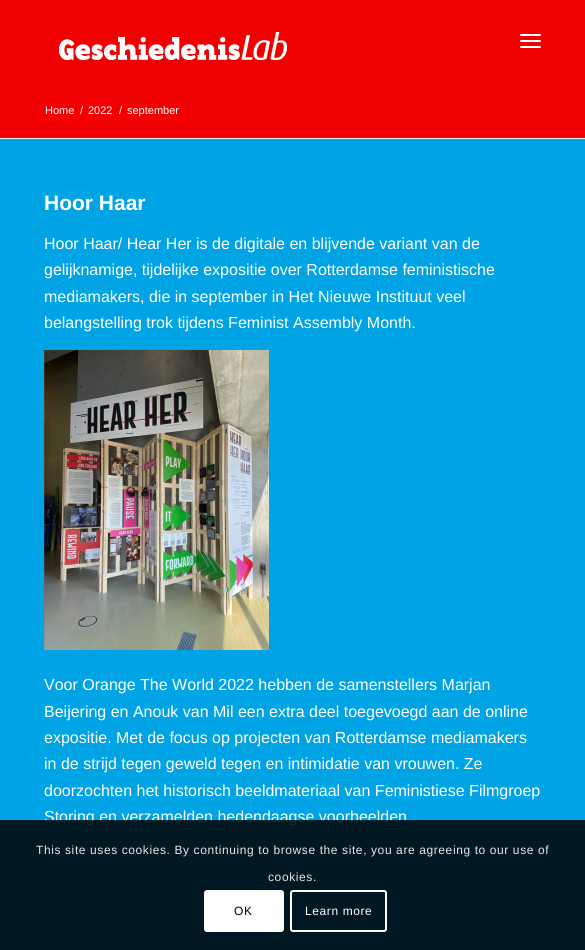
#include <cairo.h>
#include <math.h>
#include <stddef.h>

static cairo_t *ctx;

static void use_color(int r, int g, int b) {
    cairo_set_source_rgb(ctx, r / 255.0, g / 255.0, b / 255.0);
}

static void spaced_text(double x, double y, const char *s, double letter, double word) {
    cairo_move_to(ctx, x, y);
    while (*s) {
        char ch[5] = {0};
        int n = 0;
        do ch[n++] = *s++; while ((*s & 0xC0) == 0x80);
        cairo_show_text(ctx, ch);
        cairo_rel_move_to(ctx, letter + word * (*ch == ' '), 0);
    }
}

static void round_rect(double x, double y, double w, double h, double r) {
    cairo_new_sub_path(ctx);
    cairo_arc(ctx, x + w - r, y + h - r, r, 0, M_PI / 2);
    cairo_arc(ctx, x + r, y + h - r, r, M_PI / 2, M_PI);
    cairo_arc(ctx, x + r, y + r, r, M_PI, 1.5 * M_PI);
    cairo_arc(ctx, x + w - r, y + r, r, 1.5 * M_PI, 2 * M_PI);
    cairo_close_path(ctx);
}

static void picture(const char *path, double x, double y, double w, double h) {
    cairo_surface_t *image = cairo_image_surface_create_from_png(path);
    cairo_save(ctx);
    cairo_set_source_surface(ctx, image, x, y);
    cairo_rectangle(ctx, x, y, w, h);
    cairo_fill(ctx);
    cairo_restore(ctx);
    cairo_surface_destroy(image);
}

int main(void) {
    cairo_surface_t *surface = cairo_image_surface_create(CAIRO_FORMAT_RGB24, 585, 950);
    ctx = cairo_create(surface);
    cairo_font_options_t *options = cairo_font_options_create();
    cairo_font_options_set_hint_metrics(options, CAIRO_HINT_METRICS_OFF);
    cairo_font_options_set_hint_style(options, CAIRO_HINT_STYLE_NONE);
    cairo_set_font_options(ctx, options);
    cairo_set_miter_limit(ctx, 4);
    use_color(240, 0, 0);
    cairo_paint(ctx);
    picture("img1.png", 59, 32, 228, 28);
    use_color(255, 255, 255);
    round_rect(520, 40, 21, 2, 1);
    cairo_fill(ctx);
    round_rect(520, 34, 21, 2, 1);
    cairo_fill(ctx);
    round_rect(520, 46, 21, 2, 1);
    cairo_fill(ctx);
    cairo_select_font_face(ctx, "Liberation Sans", CAIRO_FONT_SLANT_NORMAL, CAIRO_FONT_WEIGHT_NORMAL);
    cairo_set_font_size(ctx, 11);
    cairo_move_to(ctx, 45, 114);
    cairo_show_text(ctx, "Home");
    cairo_move_to(ctx, 80, 114);
    cairo_show_text(ctx, "/");
    cairo_move_to(ctx, 88, 114);
    cairo_show_text(ctx, "2022");
    cairo_move_to(ctx, 119, 114);
    cairo_show_text(ctx, "/");
    cairo_move_to(ctx, 127, 114);
    cairo_show_text(ctx, "september");
    use_color(0, 163, 227);
    cairo_rectangle(ctx, 0, 139, 585, 811);
    cairo_fill(ctx);
    use_color(255, 255, 255);
    cairo_rectangle(ctx, 0, 138, 585, 1);
    cairo_fill(ctx);
    cairo_select_font_face(ctx, "Liberation Sans", CAIRO_FONT_SLANT_NORMAL, CAIRO_FONT_WEIGHT_BOLD);
    cairo_set_font_size(ctx, 21);
    cairo_move_to(ctx, 44, 210);
    cairo_show_text(ctx, "Hoor Haar");
    cairo_select_font_face(ctx, "Liberation Sans", CAIRO_FONT_SLANT_NORMAL, CAIRO_FONT_WEIGHT_NORMAL);
    cairo_set_font_size(ctx, 16);
    cairo_move_to(ctx, 44, 249);
    cairo_show_text(ctx, "Hoor Haar/ Hear Her is de digitale en blijvende variant van de");
    cairo_move_to(ctx, 44, 275);
    cairo_show_text(ctx, "gelijknamige, tijdelijke expositie over Rotterdamse feministische");
    cairo_move_to(ctx, 44, 302);
    cairo_show_text(ctx, "mediamakers, die in september in Het Nieuwe Instituut veel");
    cairo_move_to(ctx, 44, 328);
    cairo_show_text(ctx, "belangstelling trok tijdens Feminist Assembly Month.");
    picture("img2.png", 44, 350, 225, 300);
    cairo_move_to(ctx, 44, 690);
    cairo_show_text(ctx, "Voor Orange The World 2022 hebben de samenstellers Marjan");
    cairo_move_to(ctx, 44, 717);
    cairo_show_text(ctx, "Beijering en Anouk van Mil een extra deel toegevoegd aan de online");
    cairo_move_to(ctx, 44, 743);
    cairo_show_text(ctx, "expositie. Met de focus op projecten van Rotterdamse mediamakers");
    cairo_move_to(ctx, 44, 769);
    cairo_show_text(ctx, "in de strijd tegen geweld tegen en intimidatie van vrouwen. Ze");
    cairo_move_to(ctx, 44, 796);
    cairo_show_text(ctx, "doorzochten het historisch beeldmateriaal van Feministiese Filmgroep");
    cairo_move_to(ctx, 44, 822);
    cairo_show_text(ctx, "Storing en verzamelden hedendaagse voorbeelden");
    cairo_set_source_rgba(ctx, 0, 0, 0, 0.85);
    cairo_rectangle(ctx, 0, 820, 585, 130);
    cairo_fill(ctx);
    cairo_set_font_size(ctx, 12);
    use_color(230, 232, 233);
    spaced_text(36, 854, "This site uses cookies. By continuing to browse the site, you are agreeing to our use of", 0.6, 0);
    spaced_text(268, 881, "cookies.", 0.6, 0);
    use_color(255, 255, 255);
    round_rect(204, 890, 80, 42, 3);
    cairo_fill(ctx);
    use_color(0, 0, 0);
    spaced_text(234, 915, "OK", 0.6, 0);
    round_rect(291, 891, 95, 40, 2);
    use_color(255, 255, 255);
    cairo_stroke(ctx);
    spaced_text(305, 915, "Learn more", 0.6, 0);
    cairo_surface_write_to_png(surface, "result.png");
    cairo_font_options_destroy(options);
    cairo_destroy(ctx);
    cairo_surface_destroy(surface);
    return 0;
}
